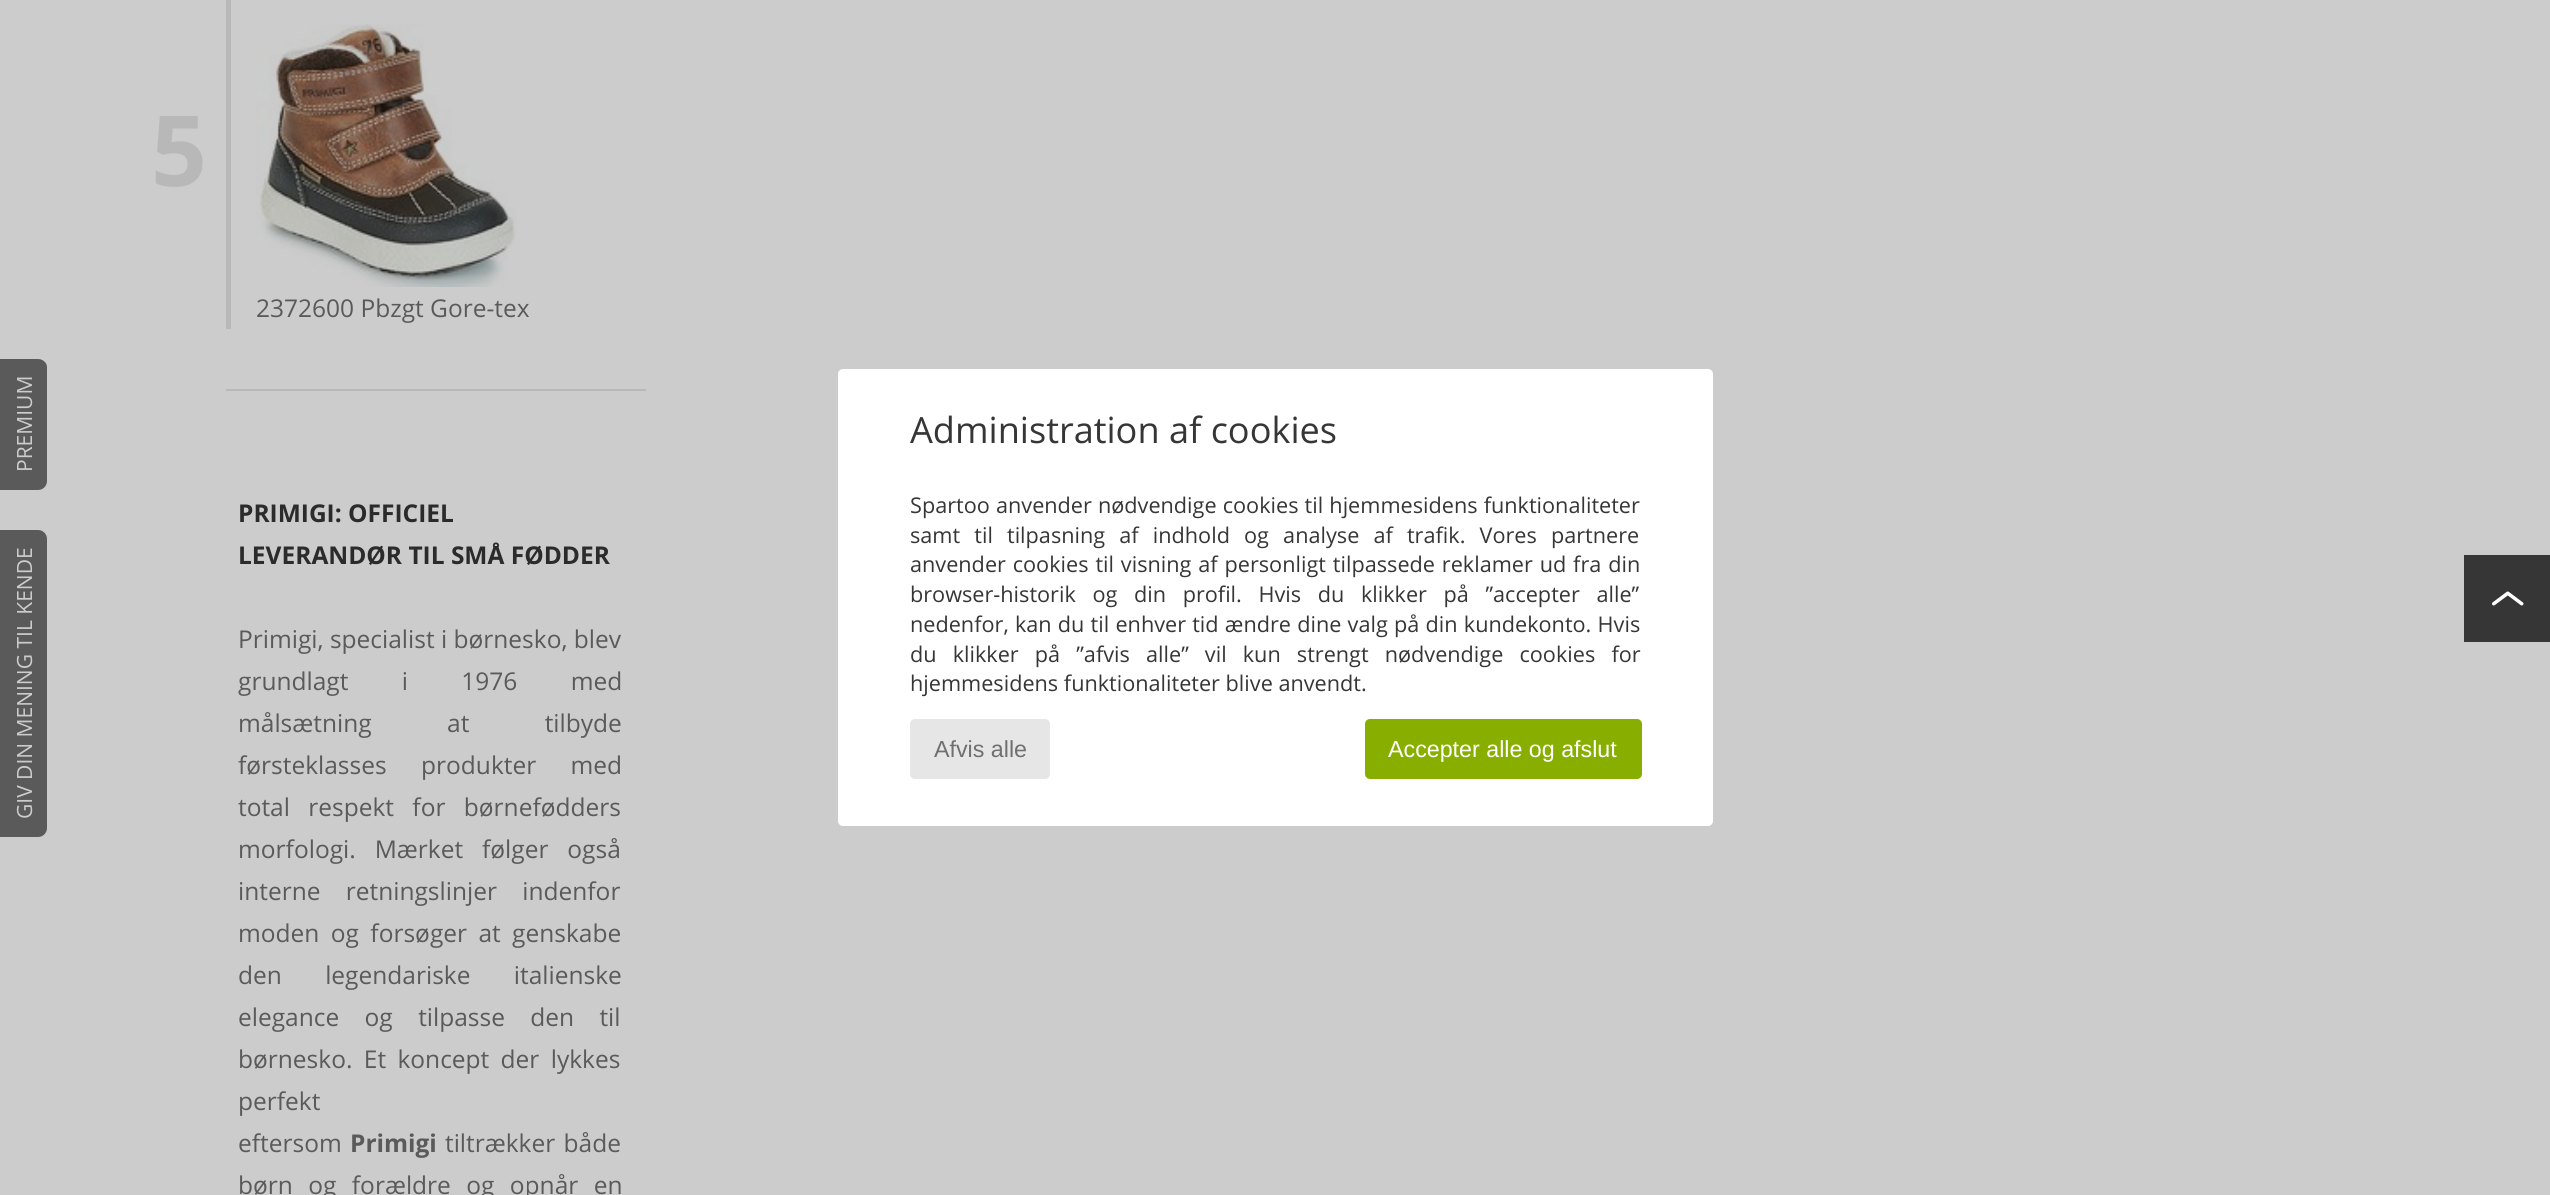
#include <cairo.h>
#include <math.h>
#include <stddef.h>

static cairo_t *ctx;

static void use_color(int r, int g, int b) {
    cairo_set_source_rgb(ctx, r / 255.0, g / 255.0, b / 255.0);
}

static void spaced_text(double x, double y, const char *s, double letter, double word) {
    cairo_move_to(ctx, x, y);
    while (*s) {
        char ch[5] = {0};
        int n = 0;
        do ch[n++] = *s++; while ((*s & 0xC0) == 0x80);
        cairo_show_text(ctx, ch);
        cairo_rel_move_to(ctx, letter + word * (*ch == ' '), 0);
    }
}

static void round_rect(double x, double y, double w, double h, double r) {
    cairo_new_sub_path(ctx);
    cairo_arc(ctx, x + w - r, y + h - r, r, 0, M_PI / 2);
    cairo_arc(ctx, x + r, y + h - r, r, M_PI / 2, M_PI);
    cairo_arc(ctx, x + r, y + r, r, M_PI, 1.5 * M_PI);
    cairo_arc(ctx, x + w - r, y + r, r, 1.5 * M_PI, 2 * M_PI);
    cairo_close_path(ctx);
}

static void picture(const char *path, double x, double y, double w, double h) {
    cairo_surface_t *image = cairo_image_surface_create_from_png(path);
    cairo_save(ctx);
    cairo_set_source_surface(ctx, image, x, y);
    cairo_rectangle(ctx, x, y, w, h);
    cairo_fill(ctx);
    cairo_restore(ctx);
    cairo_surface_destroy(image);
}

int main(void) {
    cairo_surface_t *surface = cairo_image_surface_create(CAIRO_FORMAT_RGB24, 2550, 1195);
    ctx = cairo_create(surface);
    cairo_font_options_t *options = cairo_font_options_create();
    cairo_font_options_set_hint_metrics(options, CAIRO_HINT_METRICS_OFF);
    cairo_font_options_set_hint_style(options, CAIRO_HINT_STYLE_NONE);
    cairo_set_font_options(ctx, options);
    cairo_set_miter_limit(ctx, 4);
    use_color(204, 204, 204);
    cairo_paint(ctx);
    use_color(90, 90, 90);
    cairo_new_path(ctx);
    cairo_move_to(ctx, 0, 490);
    cairo_line_to(ctx, 0, 359);
    cairo_line_to(ctx, 38, 359);
    cairo_curve_to(ctx, 43, 359, 47, 363, 47, 367);
    cairo_line_to(ctx, 47, 481);
    cairo_curve_to(ctx, 47, 486, 43, 490, 38, 490);
    cairo_close_path(ctx);
    cairo_fill(ctx);
    cairo_select_font_face(ctx, "Open Sans", CAIRO_FONT_SLANT_NORMAL, CAIRO_FONT_WEIGHT_NORMAL);
    cairo_set_font_size(ctx, 21);
    use_color(204, 204, 204);
    cairo_save(ctx);
    cairo_translate(ctx, 32, 472);
    cairo_rotate(ctx, -90 * M_PI / 180);
    cairo_move_to(ctx, 0, 0);
    cairo_show_text(ctx, "PREMIUM");
    cairo_restore(ctx);
    use_color(90, 90, 90);
    cairo_new_path(ctx);
    cairo_move_to(ctx, 0, 837);
    cairo_line_to(ctx, 0, 530);
    cairo_line_to(ctx, 38, 530);
    cairo_curve_to(ctx, 43, 530, 47, 534, 47, 539);
    cairo_line_to(ctx, 47, 828);
    cairo_curve_to(ctx, 47, 833, 43, 837, 38, 837);
    cairo_close_path(ctx);
    cairo_fill(ctx);
    use_color(204, 204, 204);
    cairo_save(ctx);
    cairo_translate(ctx, 32, 819);
    cairo_rotate(ctx, -90 * M_PI / 180);
    cairo_move_to(ctx, 0, 0);
    cairo_show_text(ctx, "GIV DIN MENING TIL KENDE");
    cairo_restore(ctx);
    use_color(184, 184, 184);
    cairo_rectangle(ctx, 226, 0, 5, 329);
    cairo_fill(ctx);
    cairo_select_font_face(ctx, "Open Sans", CAIRO_FONT_SLANT_NORMAL, CAIRO_FONT_WEIGHT_BOLD);
    cairo_set_font_size(ctx, 98);
    cairo_move_to(ctx, 151, 186);
    cairo_show_text(ctx, "5");
    picture("img1.png", 256, 24, 260, 263);
    cairo_select_font_face(ctx, "Open Sans", CAIRO_FONT_SLANT_NORMAL, CAIRO_FONT_WEIGHT_NORMAL);
    cairo_set_font_size(ctx, 24.5);
    use_color(90, 90, 90);
    cairo_move_to(ctx, 256, 317);
    cairo_show_text(ctx, "2372600 Pbzgt Gore-tex");
    use_color(184, 184, 184);
    cairo_rectangle(ctx, 226, 389, 420, 2);
    cairo_fill(ctx);
    cairo_select_font_face(ctx, "Open Sans", CAIRO_FONT_SLANT_NORMAL, CAIRO_FONT_WEIGHT_BOLD);
    use_color(43, 43, 43);
    cairo_move_to(ctx, 238, 522);
    cairo_show_text(ctx, "PRIMIGI: OFFICIEL");
    cairo_move_to(ctx, 238, 564);
    cairo_show_text(ctx, "LEVERANDØR TIL SMÅ FØDDER");
    cairo_select_font_face(ctx, "Open Sans", CAIRO_FONT_SLANT_NORMAL, CAIRO_FONT_WEIGHT_NORMAL);
    use_color(90, 90, 90);
    cairo_move_to(ctx, 238, 648);
    cairo_show_text(ctx, "Primigi, specialist i børnesko, blev");
    spaced_text(238, 690, "grundlagt i 1976 med", 0, 47);
    spaced_text(238, 732, "målsætning at tilbyde", 0, 69);
    spaced_text(238, 774, "førsteklasses produkter med", 0, 28);
    spaced_text(238, 816, "total respekt for børnefødders", 0, 12);
    spaced_text(238, 858, "morfologi. Mærket følger også", 0, 12.5);
    spaced_text(238, 900, "interne retningslinjer indenfor", 0, 19);
    spaced_text(238, 942, "moden og forsøger at genskabe", 0, 5);
    spaced_text(238, 984, "den legendariske italienske", 0, 37);
    spaced_text(238, 1026, "elegance og tilpasse den til", 0, 19);
    spaced_text(238, 1068, "børnesko. Et koncept der lykkes", 0, 5);
    cairo_move_to(ctx, 238, 1110);
    cairo_show_text(ctx, "perfekt");
    cairo_move_to(ctx, 238, 1152);
    cairo_show_text(ctx, "eftersom");
    cairo_select_font_face(ctx, "Open Sans", CAIRO_FONT_SLANT_NORMAL, CAIRO_FONT_WEIGHT_BOLD);
    cairo_move_to(ctx, 350, 1152);
    cairo_show_text(ctx, "Primigi");
    cairo_select_font_face(ctx, "Open Sans", CAIRO_FONT_SLANT_NORMAL, CAIRO_FONT_WEIGHT_NORMAL);
    spaced_text(445, 1152, "tiltrækker både", 0, 2);
    spaced_text(238, 1194, "børn og forældre og opnår en", 0, 9);
    use_color(255, 255, 255);
    round_rect(838, 369, 875, 457, 5);
    cairo_fill(ctx);
    cairo_set_font_size(ctx, 36.1);
    use_color(54, 54, 54);
    cairo_move_to(ctx, 910, 443);
    cairo_show_text(ctx, "Administration af cookies");
    cairo_set_font_size(ctx, 21.65);
    spaced_text(910, 513, "Spartoo anvender nødvendige cookies til hjemmesidens funktionaliteter", 0, 0.5);
    spaced_text(910, 543, "samt til tilpasning af indhold og analyse af trafik. Vores partnere", 0, 8.5);
    spaced_text(910, 572, "anvender cookies til visning af personligt tilpassede reklamer ud fra din", 0, 1.25);
    spaced_text(910, 602, "browser-historik og din profil. Hvis du klikker på ”accepter alle”", 0, 11);
    spaced_text(910, 632, "nedenfor, kan du til enhver tid ændre dine valg på din kundekonto. Hvis", 0, 0.6);
    spaced_text(910, 662, "du klikker på ”afvis alle” vil kun strengt nødvendige cookies for", 0, 10.5);
    cairo_move_to(ctx, 910, 691);
    cairo_show_text(ctx, "hjemmesidens funktionaliteter blive anvendt.");
    use_color(230, 230, 230);
    round_rect(910, 719, 140, 60, 5);
    cairo_fill(ctx);
    cairo_select_font_face(ctx, "Liberation Sans", CAIRO_FONT_SLANT_NORMAL, CAIRO_FONT_WEIGHT_NORMAL);
    cairo_set_font_size(ctx, 23.25);
    use_color(112, 112, 112);
    cairo_move_to(ctx, 934, 757);
    cairo_show_text(ctx, "Afvis alle");
    use_color(136, 175, 0);
    round_rect(1365, 719, 277, 60, 5);
    cairo_fill(ctx);
    use_color(255, 255, 255);
    cairo_move_to(ctx, 1388, 757);
    cairo_show_text(ctx, "Accepter alle og afslut");
    use_color(54, 54, 54);
    cairo_rectangle(ctx, 2464, 555, 86, 87);
    cairo_fill(ctx);
    picture("img2.png", 2492, 591, 32, 15);
    cairo_surface_write_to_png(surface, "result.png");
    cairo_font_options_destroy(options);
    cairo_destroy(ctx);
    cairo_surface_destroy(surface);
    return 0;
}
